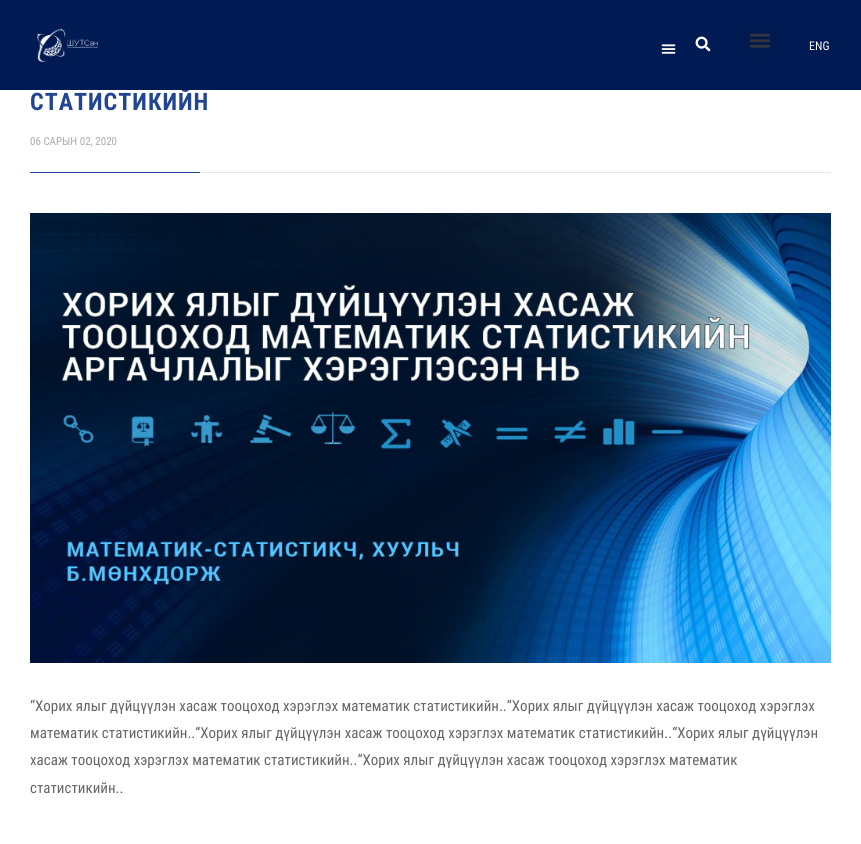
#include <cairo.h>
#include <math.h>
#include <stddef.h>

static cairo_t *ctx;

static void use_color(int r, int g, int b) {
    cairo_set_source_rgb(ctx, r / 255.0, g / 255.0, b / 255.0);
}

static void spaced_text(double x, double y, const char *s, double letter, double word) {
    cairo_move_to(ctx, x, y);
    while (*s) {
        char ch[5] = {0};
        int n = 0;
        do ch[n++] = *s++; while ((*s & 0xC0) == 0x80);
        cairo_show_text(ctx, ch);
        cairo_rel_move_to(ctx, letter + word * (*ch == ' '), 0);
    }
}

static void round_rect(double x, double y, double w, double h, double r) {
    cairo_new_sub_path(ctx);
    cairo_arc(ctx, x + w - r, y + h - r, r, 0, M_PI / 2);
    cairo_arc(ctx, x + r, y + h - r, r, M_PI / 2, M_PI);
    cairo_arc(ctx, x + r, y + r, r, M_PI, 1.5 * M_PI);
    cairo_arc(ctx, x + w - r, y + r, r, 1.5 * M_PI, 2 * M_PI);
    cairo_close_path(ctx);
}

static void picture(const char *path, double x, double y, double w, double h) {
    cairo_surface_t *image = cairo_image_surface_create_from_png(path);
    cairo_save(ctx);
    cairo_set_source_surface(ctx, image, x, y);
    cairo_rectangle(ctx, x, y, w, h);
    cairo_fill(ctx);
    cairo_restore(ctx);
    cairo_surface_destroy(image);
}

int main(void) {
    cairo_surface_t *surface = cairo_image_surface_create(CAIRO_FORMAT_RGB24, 861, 844);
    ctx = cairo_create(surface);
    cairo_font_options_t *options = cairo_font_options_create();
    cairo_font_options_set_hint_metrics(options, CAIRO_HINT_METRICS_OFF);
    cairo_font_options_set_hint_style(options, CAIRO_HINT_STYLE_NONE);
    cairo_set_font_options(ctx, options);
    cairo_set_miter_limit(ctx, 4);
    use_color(255, 255, 255);
    cairo_paint(ctx);
    cairo_select_font_face(ctx, "Roboto Condensed", CAIRO_FONT_SLANT_NORMAL, CAIRO_FONT_WEIGHT_BOLD);
    cairo_set_font_size(ctx, 24);
    use_color(34, 69, 147);
    spaced_text(30, 110, "СТАТИСТИКИЙН", 1, 0);
    use_color(0, 27, 84);
    cairo_rectangle(ctx, 0, 0, 861, 90);
    cairo_fill(ctx);
    picture("img1.png", 37, 28, 61, 35);
    picture("img2.png", 661, 44, 15, 10);
    picture("img3.png", 695, 36, 16, 16);
    use_color(0, 26, 80);
    round_rect(744, 24, 33, 33, 3);
    cairo_fill(ctx);
    picture("img4.png", 750, 33, 20, 15);
    cairo_select_font_face(ctx, "Roboto Condensed", CAIRO_FONT_SLANT_NORMAL, CAIRO_FONT_WEIGHT_NORMAL);
    cairo_set_font_size(ctx, 12);
    use_color(255, 255, 255);
    cairo_move_to(ctx, 809, 50);
    cairo_show_text(ctx, "ENG");
    use_color(230, 230, 230);
    cairo_rectangle(ctx, 200, 172, 631, 1);
    cairo_fill(ctx);
    cairo_set_font_size(ctx, 11);
    use_color(170, 170, 170);
    cairo_move_to(ctx, 30, 145);
    cairo_show_text(ctx, "06 САРЫН 02, 2020");
    use_color(34, 69, 147);
    cairo_rectangle(ctx, 30, 172, 170, 1);
    cairo_fill(ctx);
    picture("img5.png", 30, 213, 801, 450);
    cairo_set_font_size(ctx, 15);
    use_color(102, 102, 102);
    cairo_move_to(ctx, 30, 711);
    cairo_show_text(ctx, "“Хорих ялыг дүйцүүлэн хасаж тооцоход хэрэглэх математик статистикийн..“Хорих ялыг дүйцүүлэн хасаж тооцоход хэрэглэх");
    cairo_move_to(ctx, 30, 738);
    cairo_show_text(ctx, "математик статистикийн..“Хорих ялыг дүйцүүлэн хасаж тооцоход хэрэглэх математик статистикийн..“Хорих ялыг дүйцүүлэн");
    cairo_move_to(ctx, 30, 765);
    cairo_show_text(ctx, "хасаж тооцоход хэрэглэх математик статистикийн..“Хорих ялыг дүйцүүлэн хасаж тооцоход хэрэглэх математик");
    cairo_move_to(ctx, 30, 793);
    cairo_show_text(ctx, "статистикийн..");
    cairo_surface_write_to_png(surface, "result.png");
    cairo_font_options_destroy(options);
    cairo_destroy(ctx);
    cairo_surface_destroy(surface);
    return 0;
}
